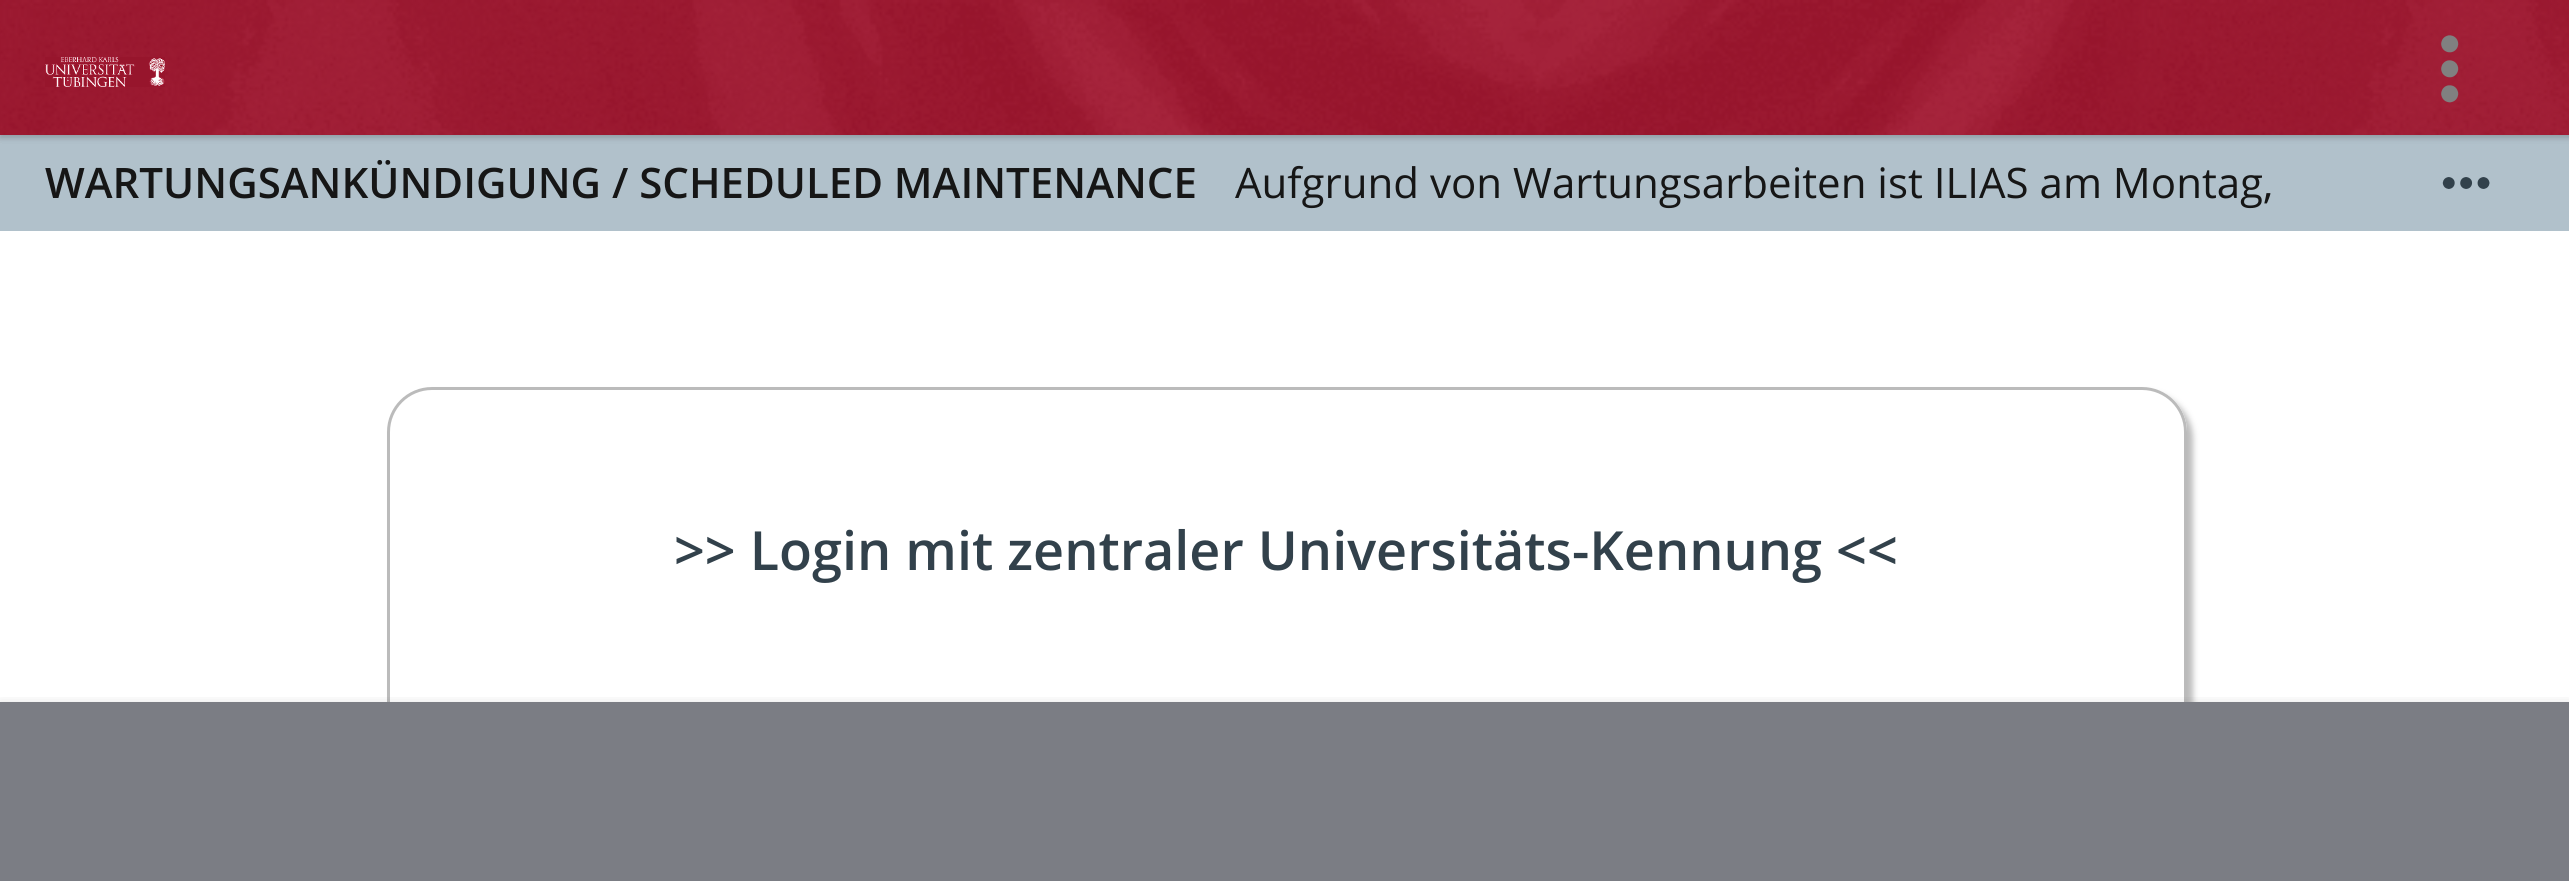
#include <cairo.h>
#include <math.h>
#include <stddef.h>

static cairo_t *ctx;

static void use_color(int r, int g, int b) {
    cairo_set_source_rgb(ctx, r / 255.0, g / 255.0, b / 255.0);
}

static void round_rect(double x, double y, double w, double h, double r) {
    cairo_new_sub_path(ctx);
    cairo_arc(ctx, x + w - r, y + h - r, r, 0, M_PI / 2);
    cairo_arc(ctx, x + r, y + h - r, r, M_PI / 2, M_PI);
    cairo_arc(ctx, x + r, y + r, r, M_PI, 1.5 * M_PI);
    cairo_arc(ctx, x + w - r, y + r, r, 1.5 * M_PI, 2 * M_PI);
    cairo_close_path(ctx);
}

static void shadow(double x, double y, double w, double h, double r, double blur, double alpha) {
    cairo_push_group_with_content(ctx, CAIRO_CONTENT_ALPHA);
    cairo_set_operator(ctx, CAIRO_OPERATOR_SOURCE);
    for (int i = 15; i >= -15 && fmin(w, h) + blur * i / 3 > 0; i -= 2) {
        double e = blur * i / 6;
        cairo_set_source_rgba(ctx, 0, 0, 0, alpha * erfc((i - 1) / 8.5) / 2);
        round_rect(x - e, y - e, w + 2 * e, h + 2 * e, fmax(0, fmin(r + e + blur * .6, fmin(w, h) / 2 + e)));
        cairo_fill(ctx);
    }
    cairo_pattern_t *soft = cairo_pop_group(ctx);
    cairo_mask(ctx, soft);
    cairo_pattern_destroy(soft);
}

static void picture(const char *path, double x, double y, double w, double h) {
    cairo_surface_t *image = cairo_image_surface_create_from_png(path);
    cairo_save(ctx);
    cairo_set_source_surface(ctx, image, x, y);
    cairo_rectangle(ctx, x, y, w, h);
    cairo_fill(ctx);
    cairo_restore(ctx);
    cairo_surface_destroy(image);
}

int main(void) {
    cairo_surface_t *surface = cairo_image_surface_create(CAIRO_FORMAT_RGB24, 2569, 881);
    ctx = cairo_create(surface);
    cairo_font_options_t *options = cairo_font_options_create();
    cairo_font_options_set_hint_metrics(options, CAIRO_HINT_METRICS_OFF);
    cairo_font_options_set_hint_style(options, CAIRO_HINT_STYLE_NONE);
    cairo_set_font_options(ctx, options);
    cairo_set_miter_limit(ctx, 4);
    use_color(255, 255, 255);
    cairo_paint(ctx);
    use_color(177, 193, 203);
    cairo_rectangle(ctx, 0, 135, 2569, 96);
    cairo_fill(ctx);
    use_color(0, 0, 0);
    shadow(0, 3, 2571, 135, 0, 3, 0.1);
    shadow(0, 3, 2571, 135, 0, 3, 0.1);
    picture("img1.png", 0, 0, 2569, 135);
    picture("img2.png", 45, 57, 120, 30);
    picture("img3.png", 2441, 35, 18, 68);
    cairo_select_font_face(ctx, "Open Sans SemiBold", CAIRO_FONT_SLANT_NORMAL, CAIRO_FONT_WEIGHT_NORMAL);
    cairo_set_font_size(ctx, 42);
    use_color(22, 22, 22);
    cairo_move_to(ctx, 45, 198);
    cairo_show_text(ctx, "WARTUNGSANKÜNDIGUNG / SCHEDULED MAINTENANCE");
    cairo_select_font_face(ctx, "Open Sans", CAIRO_FONT_SLANT_NORMAL, CAIRO_FONT_WEIGHT_NORMAL);
    cairo_move_to(ctx, 1235, 198);
    cairo_show_text(ctx, "Aufgrund von Wartungsarbeiten ist ILIAS am Montag,");
    picture("img4.png", 2442, 177, 48, 12);
    cairo_save(ctx);
    cairo_set_fill_rule(ctx, CAIRO_FILL_RULE_EVEN_ODD);
    cairo_new_path(ctx);
    cairo_move_to(ctx, 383, 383);
    cairo_line_to(ctx, 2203, 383);
    cairo_line_to(ctx, 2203, 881);
    cairo_line_to(ctx, 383, 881);
    cairo_close_path(ctx);
    cairo_move_to(ctx, 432, 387);
    cairo_line_to(ctx, 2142, 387);
    cairo_curve_to(ctx, 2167, 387, 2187, 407, 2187, 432);
    cairo_line_to(ctx, 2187, 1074);
    cairo_curve_to(ctx, 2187, 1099, 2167, 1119, 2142, 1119);
    cairo_line_to(ctx, 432, 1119);
    cairo_curve_to(ctx, 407, 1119, 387, 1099, 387, 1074);
    cairo_line_to(ctx, 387, 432);
    cairo_curve_to(ctx, 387, 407, 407, 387, 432, 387);
    cairo_close_path(ctx);
    cairo_clip(ctx);
    use_color(187, 187, 187);
    shadow(393, 393, 1800, 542, 45, 3, 1);
    cairo_restore(ctx);
    round_rect(388.5, 388.5, 1797, 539, 43.5);
    use_color(187, 187, 187);
    cairo_set_line_width(ctx, 3);
    cairo_stroke(ctx);
    cairo_select_font_face(ctx, "Open Sans SemiBold", CAIRO_FONT_SLANT_NORMAL, CAIRO_FONT_WEIGHT_NORMAL);
    cairo_set_font_size(ctx, 54);
    use_color(50, 65, 75);
    cairo_move_to(ctx, 674, 570);
    cairo_show_text(ctx, ">> Login mit zentraler Universitäts-Kennung <<");
    use_color(123, 125, 132);
    cairo_rectangle(ctx, 0, 702, 2569, 179);
    cairo_fill(ctx);
    cairo_save(ctx);
    cairo_rectangle(ctx, 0, 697, 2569, 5);
    cairo_clip(ctx);
    use_color(0, 0, 0);
    shadow(0, 702, 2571, 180, 0, 6, 0.1);
    cairo_restore(ctx);
    cairo_surface_write_to_png(surface, "result.png");
    cairo_font_options_destroy(options);
    cairo_destroy(ctx);
    cairo_surface_destroy(surface);
    return 0;
}
